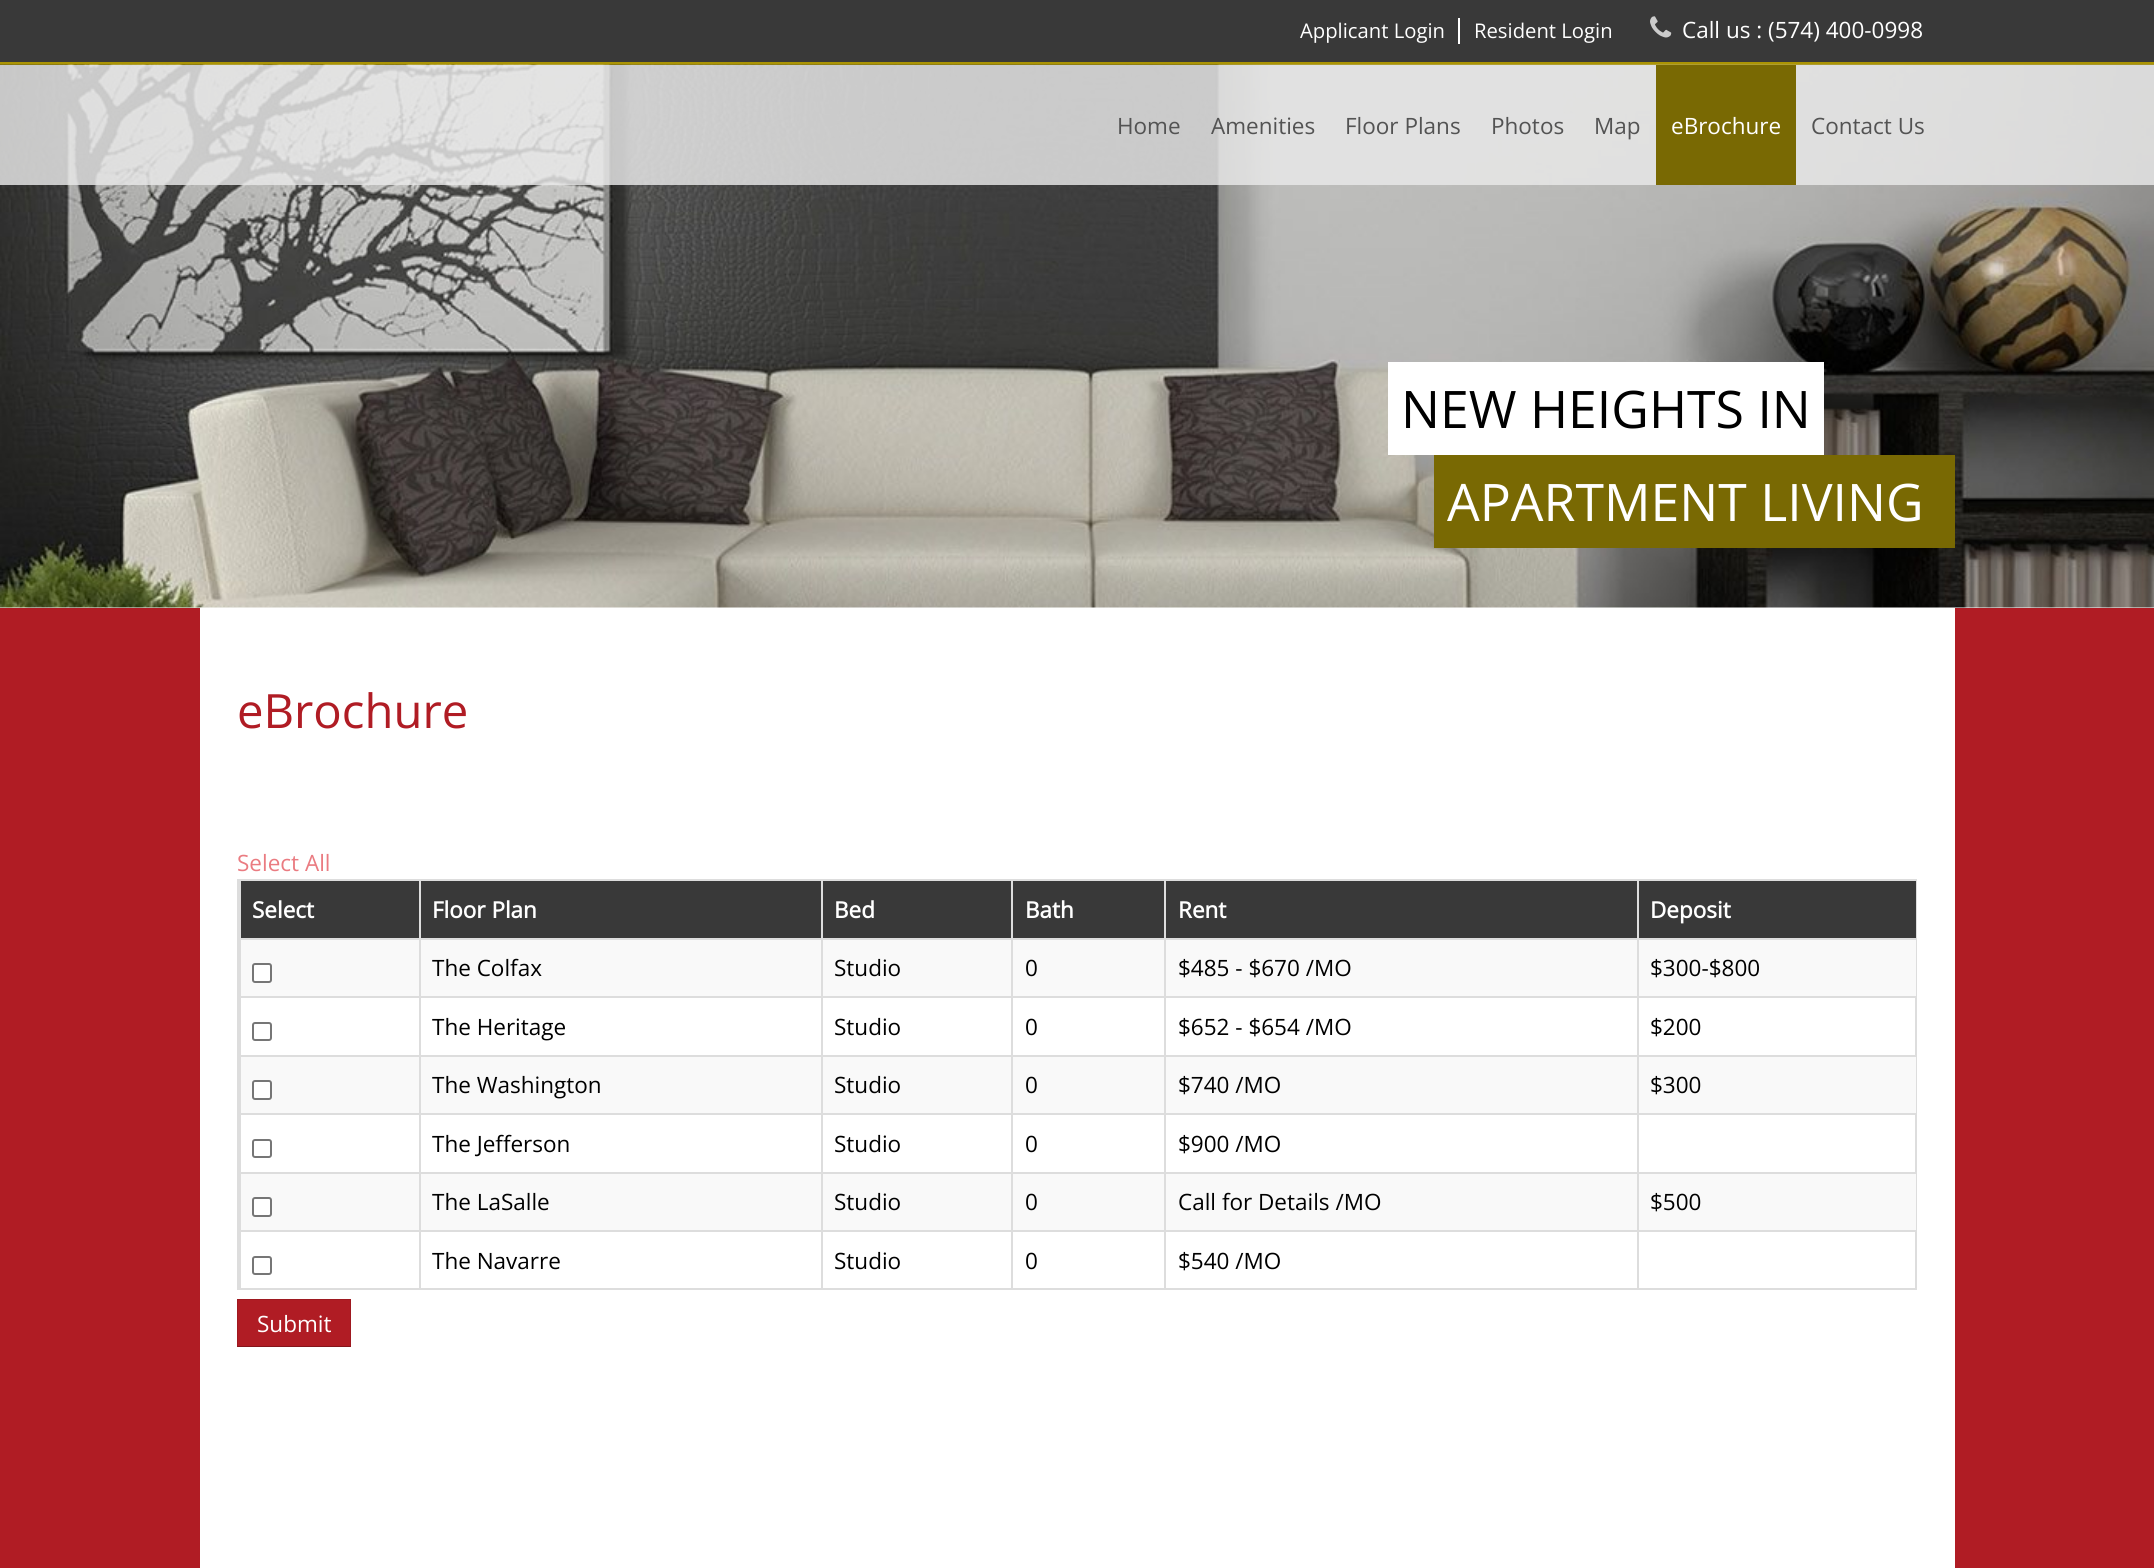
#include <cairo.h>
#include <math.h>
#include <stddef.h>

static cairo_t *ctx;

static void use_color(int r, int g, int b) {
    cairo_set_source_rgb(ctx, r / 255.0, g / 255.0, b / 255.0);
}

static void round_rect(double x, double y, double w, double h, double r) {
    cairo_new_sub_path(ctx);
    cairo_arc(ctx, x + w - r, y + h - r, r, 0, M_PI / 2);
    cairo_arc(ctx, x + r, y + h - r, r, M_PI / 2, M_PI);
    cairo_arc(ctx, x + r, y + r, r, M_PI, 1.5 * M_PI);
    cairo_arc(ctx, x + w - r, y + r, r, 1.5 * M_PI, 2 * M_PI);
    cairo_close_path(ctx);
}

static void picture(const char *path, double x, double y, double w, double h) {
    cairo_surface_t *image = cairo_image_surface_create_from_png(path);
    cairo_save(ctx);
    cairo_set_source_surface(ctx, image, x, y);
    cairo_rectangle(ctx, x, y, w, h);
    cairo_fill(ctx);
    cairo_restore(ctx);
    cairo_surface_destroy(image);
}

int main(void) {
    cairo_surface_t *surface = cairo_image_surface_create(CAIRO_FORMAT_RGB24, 2154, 1568);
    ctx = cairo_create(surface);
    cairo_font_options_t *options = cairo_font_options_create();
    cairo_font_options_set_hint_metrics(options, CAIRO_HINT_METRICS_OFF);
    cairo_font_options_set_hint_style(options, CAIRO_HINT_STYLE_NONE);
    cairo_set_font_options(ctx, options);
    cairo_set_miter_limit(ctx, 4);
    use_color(255, 255, 255);
    cairo_paint(ctx);
    use_color(57, 57, 57);
    cairo_rectangle(ctx, 0, 0, 2154, 62);
    cairo_fill(ctx);
    use_color(171, 148, 4);
    cairo_rectangle(ctx, 0, 62, 2154, 3);
    cairo_fill(ctx);
    cairo_select_font_face(ctx, "Open Sans", CAIRO_FONT_SLANT_NORMAL, CAIRO_FONT_WEIGHT_NORMAL);
    cairo_set_font_size(ctx, 20.25);
    use_color(255, 255, 255);
    cairo_move_to(ctx, 1300, 38);
    cairo_show_text(ctx, "Applicant Login");
    cairo_move_to(ctx, 1474, 38);
    cairo_show_text(ctx, "Resident Login");
    cairo_rectangle(ctx, 1458, 18, 2, 26);
    cairo_fill(ctx);
    picture("img1.png", 1650, 16, 22, 22);
    cairo_set_font_size(ctx, 22.5);
    cairo_move_to(ctx, 1682, 38);
    cairo_show_text(ctx, "Call us : (574) 400-0998");
    picture("img2.png", 0, 64, 2154, 544);
    cairo_set_source_rgba(ctx, 0.914, 0.914, 0.914, 0.82);
    cairo_rectangle(ctx, 0, 65, 2154, 120);
    cairo_fill(ctx);
    use_color(83, 83, 83);
    cairo_move_to(ctx, 1117, 134);
    cairo_show_text(ctx, "Home");
    cairo_move_to(ctx, 1211, 134);
    cairo_show_text(ctx, "Amenities");
    cairo_move_to(ctx, 1345, 134);
    cairo_show_text(ctx, "Floor Plans");
    cairo_move_to(ctx, 1491, 134);
    cairo_show_text(ctx, "Photos");
    cairo_move_to(ctx, 1594, 134);
    cairo_show_text(ctx, "Map");
    use_color(121, 105, 3);
    cairo_rectangle(ctx, 1656, 65, 140, 120);
    cairo_fill(ctx);
    use_color(255, 255, 255);
    cairo_move_to(ctx, 1671, 134);
    cairo_show_text(ctx, "eBrochure");
    use_color(83, 83, 83);
    cairo_move_to(ctx, 1811, 134);
    cairo_show_text(ctx, "Contact Us");
    use_color(255, 255, 255);
    cairo_rectangle(ctx, 1388, 362, 436, 93);
    cairo_fill(ctx);
    cairo_set_font_size(ctx, 51.75);
    use_color(0, 0, 0);
    cairo_move_to(ctx, 1401, 428);
    cairo_show_text(ctx, "NEW HEIGHTS IN");
    use_color(121, 105, 3);
    cairo_rectangle(ctx, 1434, 455, 521, 93);
    cairo_fill(ctx);
    use_color(255, 255, 255);
    cairo_move_to(ctx, 1447, 521);
    cairo_show_text(ctx, "APARTMENT LIVING");
    use_color(176, 28, 36);
    cairo_rectangle(ctx, 0, 608, 2154, 960);
    cairo_fill(ctx);
    use_color(255, 255, 255);
    cairo_rectangle(ctx, 200, 608, 1755, 960);
    cairo_fill(ctx);
    cairo_set_font_size(ctx, 47.25);
    use_color(176, 28, 36);
    cairo_move_to(ctx, 237, 728);
    cairo_show_text(ctx, "eBrochure");
    cairo_set_font_size(ctx, 22.5);
    use_color(234, 123, 129);
    cairo_move_to(ctx, 237, 871);
    cairo_show_text(ctx, "Select All");
    cairo_rectangle(ctx, 238, 880, 1678, 409);
    use_color(221, 221, 221);
    cairo_stroke(ctx);
    use_color(57, 57, 57);
    cairo_rectangle(ctx, 241, 881, 178, 57);
    cairo_fill(ctx);
    use_color(221, 221, 221);
    cairo_rectangle(ctx, 239, 881, 2, 57);
    cairo_fill(ctx);
    cairo_select_font_face(ctx, "Open Sans", CAIRO_FONT_SLANT_NORMAL, CAIRO_FONT_WEIGHT_BOLD);
    use_color(255, 255, 255);
    cairo_move_to(ctx, 252, 918);
    cairo_show_text(ctx, "Select");
    use_color(57, 57, 57);
    cairo_rectangle(ctx, 421, 881, 400, 57);
    cairo_fill(ctx);
    use_color(221, 221, 221);
    cairo_rectangle(ctx, 419, 881, 2, 57);
    cairo_fill(ctx);
    use_color(255, 255, 255);
    cairo_move_to(ctx, 432, 918);
    cairo_show_text(ctx, "Floor Plan");
    use_color(57, 57, 57);
    cairo_rectangle(ctx, 823, 881, 188, 57);
    cairo_fill(ctx);
    use_color(221, 221, 221);
    cairo_rectangle(ctx, 821, 881, 2, 57);
    cairo_fill(ctx);
    use_color(255, 255, 255);
    cairo_move_to(ctx, 834, 918);
    cairo_show_text(ctx, "Bed");
    use_color(57, 57, 57);
    cairo_rectangle(ctx, 1013, 881, 151, 57);
    cairo_fill(ctx);
    use_color(221, 221, 221);
    cairo_rectangle(ctx, 1011, 881, 2, 57);
    cairo_fill(ctx);
    use_color(255, 255, 255);
    cairo_move_to(ctx, 1025, 918);
    cairo_show_text(ctx, "Bath");
    use_color(57, 57, 57);
    cairo_rectangle(ctx, 1166, 881, 471, 57);
    cairo_fill(ctx);
    use_color(221, 221, 221);
    cairo_rectangle(ctx, 1164, 881, 2, 57);
    cairo_fill(ctx);
    use_color(255, 255, 255);
    cairo_move_to(ctx, 1178, 918);
    cairo_show_text(ctx, "Rent");
    use_color(57, 57, 57);
    cairo_rectangle(ctx, 1639, 881, 277, 57);
    cairo_fill(ctx);
    use_color(221, 221, 221);
    cairo_rectangle(ctx, 1637, 881, 2, 57);
    cairo_fill(ctx);
    use_color(255, 255, 255);
    cairo_move_to(ctx, 1650, 918);
    cairo_show_text(ctx, "Deposit");
    use_color(249, 249, 249);
    cairo_rectangle(ctx, 241, 940, 178, 56);
    cairo_fill(ctx);
    use_color(221, 221, 221);
    cairo_rectangle(ctx, 239, 938, 1677, 2);
    cairo_fill(ctx);
    cairo_rectangle(ctx, 239, 938, 2, 58);
    cairo_fill(ctx);
    use_color(255, 255, 255);
    round_rect(253, 964, 18, 18, 2);
    cairo_fill_preserve(ctx);
    use_color(118, 118, 118);
    cairo_stroke(ctx);
    use_color(249, 249, 249);
    cairo_rectangle(ctx, 421, 940, 400, 56);
    cairo_fill(ctx);
    use_color(221, 221, 221);
    cairo_rectangle(ctx, 419, 938, 2, 58);
    cairo_fill(ctx);
    cairo_select_font_face(ctx, "Open Sans", CAIRO_FONT_SLANT_NORMAL, CAIRO_FONT_WEIGHT_NORMAL);
    use_color(0, 0, 0);
    cairo_move_to(ctx, 432, 976);
    cairo_show_text(ctx, "The Colfax");
    use_color(249, 249, 249);
    cairo_rectangle(ctx, 823, 940, 188, 56);
    cairo_fill(ctx);
    use_color(221, 221, 221);
    cairo_rectangle(ctx, 821, 938, 2, 58);
    cairo_fill(ctx);
    use_color(0, 0, 0);
    cairo_move_to(ctx, 834, 976);
    cairo_show_text(ctx, "Studio");
    use_color(249, 249, 249);
    cairo_rectangle(ctx, 1013, 940, 151, 56);
    cairo_fill(ctx);
    use_color(221, 221, 221);
    cairo_rectangle(ctx, 1011, 938, 2, 58);
    cairo_fill(ctx);
    use_color(0, 0, 0);
    cairo_move_to(ctx, 1025, 976);
    cairo_show_text(ctx, "0");
    use_color(249, 249, 249);
    cairo_rectangle(ctx, 1166, 940, 471, 56);
    cairo_fill(ctx);
    use_color(221, 221, 221);
    cairo_rectangle(ctx, 1164, 938, 2, 58);
    cairo_fill(ctx);
    use_color(0, 0, 0);
    cairo_move_to(ctx, 1178, 976);
    cairo_show_text(ctx, "$485 - $670 /MO");
    use_color(249, 249, 249);
    cairo_rectangle(ctx, 1639, 940, 277, 56);
    cairo_fill(ctx);
    use_color(221, 221, 221);
    cairo_rectangle(ctx, 1637, 938, 2, 58);
    cairo_fill(ctx);
    use_color(0, 0, 0);
    cairo_move_to(ctx, 1650, 976);
    cairo_show_text(ctx, "$300-$800");
    use_color(221, 221, 221);
    cairo_rectangle(ctx, 239, 996, 1677, 2);
    cairo_fill(ctx);
    cairo_rectangle(ctx, 239, 996, 2, 59);
    cairo_fill(ctx);
    round_rect(253, 1023, 18, 17, 2);
    use_color(118, 118, 118);
    cairo_stroke(ctx);
    use_color(221, 221, 221);
    cairo_rectangle(ctx, 419, 996, 2, 59);
    cairo_fill(ctx);
    use_color(0, 0, 0);
    cairo_move_to(ctx, 432, 1035);
    cairo_show_text(ctx, "The Heritage");
    use_color(221, 221, 221);
    cairo_rectangle(ctx, 821, 996, 2, 59);
    cairo_fill(ctx);
    use_color(0, 0, 0);
    cairo_move_to(ctx, 834, 1035);
    cairo_show_text(ctx, "Studio");
    use_color(221, 221, 221);
    cairo_rectangle(ctx, 1011, 996, 2, 59);
    cairo_fill(ctx);
    use_color(0, 0, 0);
    cairo_move_to(ctx, 1025, 1035);
    cairo_show_text(ctx, "0");
    use_color(221, 221, 221);
    cairo_rectangle(ctx, 1164, 996, 2, 59);
    cairo_fill(ctx);
    use_color(0, 0, 0);
    cairo_move_to(ctx, 1178, 1035);
    cairo_show_text(ctx, "$652 - $654 /MO");
    use_color(221, 221, 221);
    cairo_rectangle(ctx, 1637, 996, 2, 59);
    cairo_fill(ctx);
    use_color(0, 0, 0);
    cairo_move_to(ctx, 1650, 1035);
    cairo_show_text(ctx, "$200");
    use_color(249, 249, 249);
    cairo_rectangle(ctx, 241, 1057, 178, 56);
    cairo_fill(ctx);
    use_color(221, 221, 221);
    cairo_rectangle(ctx, 239, 1055, 1677, 2);
    cairo_fill(ctx);
    cairo_rectangle(ctx, 239, 1055, 2, 58);
    cairo_fill(ctx);
    use_color(255, 255, 255);
    round_rect(253, 1081, 18, 18, 2);
    cairo_fill_preserve(ctx);
    use_color(118, 118, 118);
    cairo_stroke(ctx);
    use_color(249, 249, 249);
    cairo_rectangle(ctx, 421, 1057, 400, 56);
    cairo_fill(ctx);
    use_color(221, 221, 221);
    cairo_rectangle(ctx, 419, 1055, 2, 58);
    cairo_fill(ctx);
    use_color(0, 0, 0);
    cairo_move_to(ctx, 432, 1093);
    cairo_show_text(ctx, "The Washington");
    use_color(249, 249, 249);
    cairo_rectangle(ctx, 823, 1057, 188, 56);
    cairo_fill(ctx);
    use_color(221, 221, 221);
    cairo_rectangle(ctx, 821, 1055, 2, 58);
    cairo_fill(ctx);
    use_color(0, 0, 0);
    cairo_move_to(ctx, 834, 1093);
    cairo_show_text(ctx, "Studio");
    use_color(249, 249, 249);
    cairo_rectangle(ctx, 1013, 1057, 151, 56);
    cairo_fill(ctx);
    use_color(221, 221, 221);
    cairo_rectangle(ctx, 1011, 1055, 2, 58);
    cairo_fill(ctx);
    use_color(0, 0, 0);
    cairo_move_to(ctx, 1025, 1093);
    cairo_show_text(ctx, "0");
    use_color(249, 249, 249);
    cairo_rectangle(ctx, 1166, 1057, 471, 56);
    cairo_fill(ctx);
    use_color(221, 221, 221);
    cairo_rectangle(ctx, 1164, 1055, 2, 58);
    cairo_fill(ctx);
    use_color(0, 0, 0);
    cairo_move_to(ctx, 1178, 1093);
    cairo_show_text(ctx, "$740 /MO");
    use_color(249, 249, 249);
    cairo_rectangle(ctx, 1639, 1057, 277, 56);
    cairo_fill(ctx);
    use_color(221, 221, 221);
    cairo_rectangle(ctx, 1637, 1055, 2, 58);
    cairo_fill(ctx);
    use_color(0, 0, 0);
    cairo_move_to(ctx, 1650, 1093);
    cairo_show_text(ctx, "$300");
    use_color(221, 221, 221);
    cairo_rectangle(ctx, 239, 1113, 1677, 2);
    cairo_fill(ctx);
    cairo_rectangle(ctx, 239, 1113, 2, 59);
    cairo_fill(ctx);
    round_rect(253, 1140, 18, 17, 2);
    use_color(118, 118, 118);
    cairo_stroke(ctx);
    use_color(221, 221, 221);
    cairo_rectangle(ctx, 419, 1113, 2, 59);
    cairo_fill(ctx);
    use_color(0, 0, 0);
    cairo_move_to(ctx, 432, 1152);
    cairo_show_text(ctx, "The Jefferson");
    use_color(221, 221, 221);
    cairo_rectangle(ctx, 821, 1113, 2, 59);
    cairo_fill(ctx);
    use_color(0, 0, 0);
    cairo_move_to(ctx, 834, 1152);
    cairo_show_text(ctx, "Studio");
    use_color(221, 221, 221);
    cairo_rectangle(ctx, 1011, 1113, 2, 59);
    cairo_fill(ctx);
    use_color(0, 0, 0);
    cairo_move_to(ctx, 1025, 1152);
    cairo_show_text(ctx, "0");
    use_color(221, 221, 221);
    cairo_rectangle(ctx, 1164, 1113, 2, 59);
    cairo_fill(ctx);
    use_color(0, 0, 0);
    cairo_move_to(ctx, 1178, 1152);
    cairo_show_text(ctx, "$900 /MO");
    use_color(221, 221, 221);
    cairo_rectangle(ctx, 1637, 1113, 2, 59);
    cairo_fill(ctx);
    use_color(249, 249, 249);
    cairo_rectangle(ctx, 241, 1174, 178, 56);
    cairo_fill(ctx);
    use_color(221, 221, 221);
    cairo_rectangle(ctx, 239, 1172, 1677, 2);
    cairo_fill(ctx);
    cairo_rectangle(ctx, 239, 1172, 2, 58);
    cairo_fill(ctx);
    use_color(255, 255, 255);
    round_rect(253, 1198, 18, 18, 2);
    cairo_fill_preserve(ctx);
    use_color(118, 118, 118);
    cairo_stroke(ctx);
    use_color(249, 249, 249);
    cairo_rectangle(ctx, 421, 1174, 400, 56);
    cairo_fill(ctx);
    use_color(221, 221, 221);
    cairo_rectangle(ctx, 419, 1172, 2, 58);
    cairo_fill(ctx);
    use_color(0, 0, 0);
    cairo_move_to(ctx, 432, 1210);
    cairo_show_text(ctx, "The LaSalle");
    use_color(249, 249, 249);
    cairo_rectangle(ctx, 823, 1174, 188, 56);
    cairo_fill(ctx);
    use_color(221, 221, 221);
    cairo_rectangle(ctx, 821, 1172, 2, 58);
    cairo_fill(ctx);
    use_color(0, 0, 0);
    cairo_move_to(ctx, 834, 1210);
    cairo_show_text(ctx, "Studio");
    use_color(249, 249, 249);
    cairo_rectangle(ctx, 1013, 1174, 151, 56);
    cairo_fill(ctx);
    use_color(221, 221, 221);
    cairo_rectangle(ctx, 1011, 1172, 2, 58);
    cairo_fill(ctx);
    use_color(0, 0, 0);
    cairo_move_to(ctx, 1025, 1210);
    cairo_show_text(ctx, "0");
    use_color(249, 249, 249);
    cairo_rectangle(ctx, 1166, 1174, 471, 56);
    cairo_fill(ctx);
    use_color(221, 221, 221);
    cairo_rectangle(ctx, 1164, 1172, 2, 58);
    cairo_fill(ctx);
    use_color(0, 0, 0);
    cairo_move_to(ctx, 1178, 1210);
    cairo_show_text(ctx, "Call for Details /MO");
    use_color(249, 249, 249);
    cairo_rectangle(ctx, 1639, 1174, 277, 56);
    cairo_fill(ctx);
    use_color(221, 221, 221);
    cairo_rectangle(ctx, 1637, 1172, 2, 58);
    cairo_fill(ctx);
    use_color(0, 0, 0);
    cairo_move_to(ctx, 1650, 1210);
    cairo_show_text(ctx, "$500");
    use_color(221, 221, 221);
    cairo_rectangle(ctx, 239, 1230, 1677, 2);
    cairo_fill(ctx);
    cairo_rectangle(ctx, 239, 1230, 2, 59);
    cairo_fill(ctx);
    round_rect(253, 1257, 18, 17, 2);
    use_color(118, 118, 118);
    cairo_stroke(ctx);
    use_color(221, 221, 221);
    cairo_rectangle(ctx, 419, 1230, 2, 59);
    cairo_fill(ctx);
    use_color(0, 0, 0);
    cairo_move_to(ctx, 432, 1269);
    cairo_show_text(ctx, "The Navarre");
    use_color(221, 221, 221);
    cairo_rectangle(ctx, 821, 1230, 2, 59);
    cairo_fill(ctx);
    use_color(0, 0, 0);
    cairo_move_to(ctx, 834, 1269);
    cairo_show_text(ctx, "Studio");
    use_color(221, 221, 221);
    cairo_rectangle(ctx, 1011, 1230, 2, 59);
    cairo_fill(ctx);
    use_color(0, 0, 0);
    cairo_move_to(ctx, 1025, 1269);
    cairo_show_text(ctx, "0");
    use_color(221, 221, 221);
    cairo_rectangle(ctx, 1164, 1230, 2, 59);
    cairo_fill(ctx);
    use_color(0, 0, 0);
    cairo_move_to(ctx, 1178, 1269);
    cairo_show_text(ctx, "$540 /MO");
    use_color(221, 221, 221);
    cairo_rectangle(ctx, 1637, 1230, 2, 59);
    cairo_fill(ctx);
    use_color(176, 28, 36);
    cairo_rectangle(ctx, 237, 1299, 114, 48);
    cairo_fill(ctx);
    use_color(158, 25, 32);
    cairo_new_path(ctx);
    cairo_move_to(ctx, 237, 1299);
    cairo_line_to(ctx, 351, 1299);
    cairo_line_to(ctx, 350, 1300);
    cairo_line_to(ctx, 238, 1300);
    cairo_close_path(ctx);
    cairo_fill(ctx);
    cairo_set_source_rgba(ctx, 0, 0, 0, 0.1);
    cairo_new_path(ctx);
    cairo_move_to(ctx, 351, 1299);
    cairo_line_to(ctx, 351, 1347);
    cairo_line_to(ctx, 350, 1346);
    cairo_line_to(ctx, 350, 1300);
    cairo_close_path(ctx);
    cairo_fill(ctx);
    cairo_set_source_rgba(ctx, 0, 0, 0, 0.25);
    cairo_new_path(ctx);
    cairo_move_to(ctx, 351, 1347);
    cairo_line_to(ctx, 237, 1347);
    cairo_line_to(ctx, 238, 1346);
    cairo_line_to(ctx, 350, 1346);
    cairo_close_path(ctx);
    cairo_fill(ctx);
    cairo_set_source_rgba(ctx, 0, 0, 0, 0.1);
    cairo_new_path(ctx);
    cairo_move_to(ctx, 237, 1347);
    cairo_line_to(ctx, 237, 1299);
    cairo_line_to(ctx, 238, 1300);
    cairo_line_to(ctx, 238, 1346);
    cairo_close_path(ctx);
    cairo_fill(ctx);
    use_color(255, 255, 255);
    cairo_move_to(ctx, 257, 1332);
    cairo_show_text(ctx, "Submit");
    cairo_surface_write_to_png(surface, "result.png");
    cairo_font_options_destroy(options);
    cairo_destroy(ctx);
    cairo_surface_destroy(surface);
    return 0;
}
